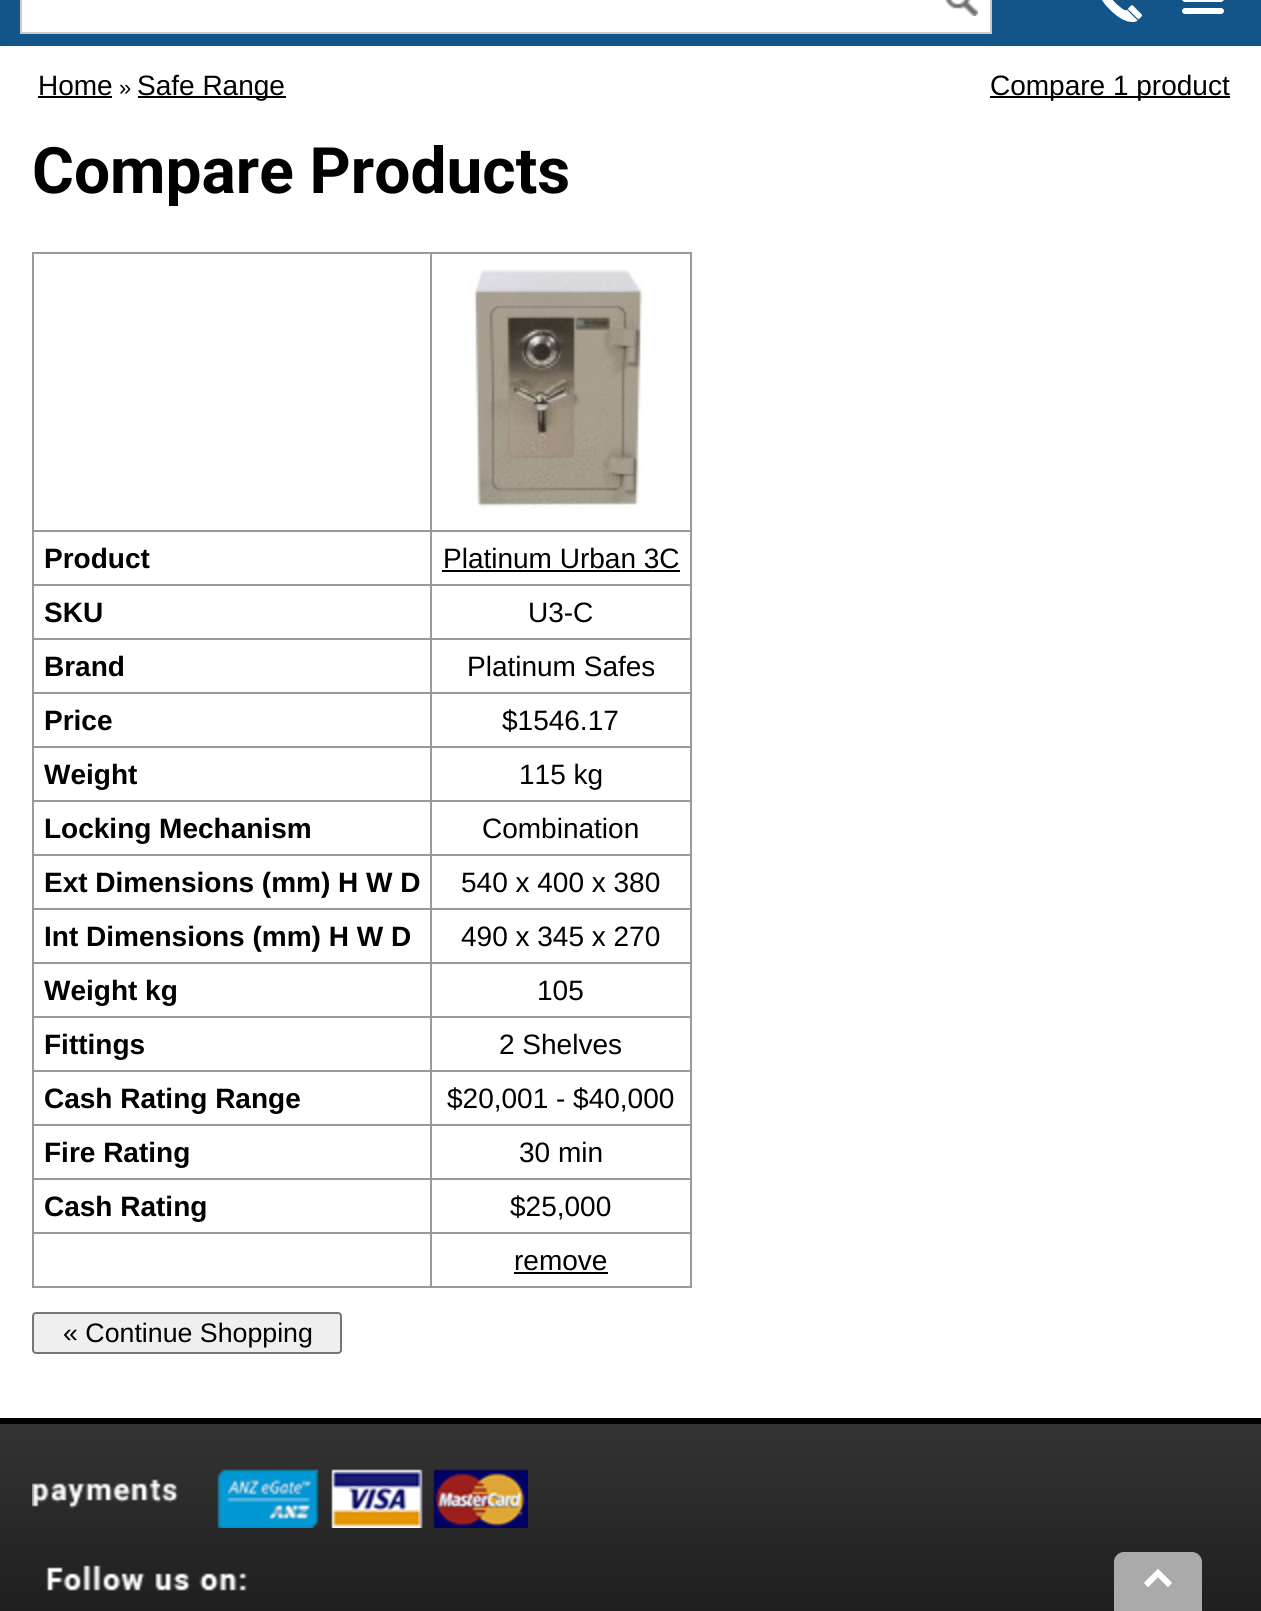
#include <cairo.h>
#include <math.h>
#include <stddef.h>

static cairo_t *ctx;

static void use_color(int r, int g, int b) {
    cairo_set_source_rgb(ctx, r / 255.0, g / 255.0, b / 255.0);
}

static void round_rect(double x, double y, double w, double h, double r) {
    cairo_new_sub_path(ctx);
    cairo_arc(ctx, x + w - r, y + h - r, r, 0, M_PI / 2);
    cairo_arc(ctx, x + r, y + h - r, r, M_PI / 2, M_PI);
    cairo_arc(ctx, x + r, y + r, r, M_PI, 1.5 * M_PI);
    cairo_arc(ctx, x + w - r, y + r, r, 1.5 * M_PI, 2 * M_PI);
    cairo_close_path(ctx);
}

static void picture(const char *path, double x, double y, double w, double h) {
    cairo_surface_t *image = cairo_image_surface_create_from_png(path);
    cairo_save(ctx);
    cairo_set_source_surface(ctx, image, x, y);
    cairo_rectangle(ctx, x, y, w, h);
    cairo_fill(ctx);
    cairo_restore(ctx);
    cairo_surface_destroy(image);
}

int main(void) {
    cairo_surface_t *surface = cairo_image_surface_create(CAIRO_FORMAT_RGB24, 1261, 1611);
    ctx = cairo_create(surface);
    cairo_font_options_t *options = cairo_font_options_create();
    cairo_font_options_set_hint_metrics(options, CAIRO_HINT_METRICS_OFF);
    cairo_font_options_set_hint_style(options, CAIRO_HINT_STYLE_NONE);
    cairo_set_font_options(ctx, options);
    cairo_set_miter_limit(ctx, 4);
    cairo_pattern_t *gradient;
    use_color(255, 255, 255);
    cairo_paint(ctx);
    use_color(19, 85, 137);
    cairo_rectangle(ctx, 0, 0, 1261, 46);
    cairo_fill(ctx);
    use_color(255, 255, 255);
    cairo_rectangle(ctx, 22, 0, 968, 32);
    cairo_fill(ctx);
    use_color(204, 204, 204);
    cairo_rectangle(ctx, 20, 32, 912, 2);
    cairo_fill(ctx);
    cairo_rectangle(ctx, 20, 0, 2, 34);
    cairo_fill(ctx);
    picture("img1.png", 946, 0, 32, 16);
    cairo_rectangle(ctx, 990, 0, 2, 34);
    cairo_fill(ctx);
    cairo_rectangle(ctx, 932, 32, 60, 2);
    cairo_fill(ctx);
    picture("img2.png", 1102, 0, 40, 22);
    picture("img3.png", 1182, 0, 42, 14);
    cairo_select_font_face(ctx, "Arimo", CAIRO_FONT_SLANT_NORMAL, CAIRO_FONT_WEIGHT_NORMAL);
    cairo_set_font_size(ctx, 28);
    use_color(0, 0, 0);
    cairo_move_to(ctx, 38, 95);
    cairo_show_text(ctx, "Home");
    cairo_rectangle(ctx, 38, 96, 74, 2);
    cairo_fill(ctx);
    cairo_set_font_size(ctx, 22);
    cairo_move_to(ctx, 119, 95);
    cairo_show_text(ctx, "»");
    cairo_rectangle(ctx, 138, 96, 148, 2);
    cairo_fill(ctx);
    cairo_set_font_size(ctx, 28);
    cairo_move_to(ctx, 137, 95);
    cairo_show_text(ctx, "Safe Range");
    cairo_rectangle(ctx, 990, 96, 240, 2);
    cairo_fill(ctx);
    cairo_move_to(ctx, 990, 95);
    cairo_show_text(ctx, "Compare 1 product");
    cairo_select_font_face(ctx, "Roboto", CAIRO_FONT_SLANT_NORMAL, CAIRO_FONT_WEIGHT_BOLD);
    cairo_set_font_size(ctx, 64);
    cairo_move_to(ctx, 32, 193);
    cairo_show_text(ctx, "Compare Products");
    use_color(153, 153, 153);
    cairo_rectangle(ctx, 430, 252, 262, 2);
    cairo_fill(ctx);
    cairo_rectangle(ctx, 430, 530, 262, 2);
    cairo_fill(ctx);
    cairo_rectangle(ctx, 430, 584, 262, 2);
    cairo_fill(ctx);
    cairo_rectangle(ctx, 430, 638, 262, 2);
    cairo_fill(ctx);
    cairo_rectangle(ctx, 430, 692, 262, 2);
    cairo_fill(ctx);
    cairo_rectangle(ctx, 430, 746, 262, 2);
    cairo_fill(ctx);
    cairo_rectangle(ctx, 430, 800, 262, 2);
    cairo_fill(ctx);
    cairo_rectangle(ctx, 430, 854, 262, 2);
    cairo_fill(ctx);
    cairo_rectangle(ctx, 430, 908, 262, 2);
    cairo_fill(ctx);
    cairo_rectangle(ctx, 430, 962, 262, 2);
    cairo_fill(ctx);
    cairo_rectangle(ctx, 430, 1016, 262, 2);
    cairo_fill(ctx);
    cairo_rectangle(ctx, 430, 1070, 262, 2);
    cairo_fill(ctx);
    cairo_rectangle(ctx, 430, 1124, 262, 2);
    cairo_fill(ctx);
    cairo_rectangle(ctx, 430, 1178, 262, 2);
    cairo_fill(ctx);
    cairo_rectangle(ctx, 430, 1232, 262, 2);
    cairo_fill(ctx);
    cairo_rectangle(ctx, 690, 1232, 2, 56);
    cairo_fill(ctx);
    cairo_rectangle(ctx, 430, 1286, 262, 2);
    cairo_fill(ctx);
    cairo_rectangle(ctx, 430, 1232, 2, 56);
    cairo_fill(ctx);
    cairo_rectangle(ctx, 32, 1232, 400, 2);
    cairo_fill(ctx);
    cairo_rectangle(ctx, 430, 1178, 2, 56);
    cairo_fill(ctx);
    cairo_rectangle(ctx, 32, 1178, 400, 2);
    cairo_fill(ctx);
    cairo_rectangle(ctx, 430, 1124, 2, 56);
    cairo_fill(ctx);
    cairo_rectangle(ctx, 32, 1124, 400, 2);
    cairo_fill(ctx);
    cairo_rectangle(ctx, 430, 1070, 2, 56);
    cairo_fill(ctx);
    cairo_rectangle(ctx, 32, 1070, 400, 2);
    cairo_fill(ctx);
    cairo_rectangle(ctx, 430, 1016, 2, 56);
    cairo_fill(ctx);
    cairo_rectangle(ctx, 32, 1016, 400, 2);
    cairo_fill(ctx);
    cairo_rectangle(ctx, 430, 962, 2, 56);
    cairo_fill(ctx);
    cairo_rectangle(ctx, 32, 962, 400, 2);
    cairo_fill(ctx);
    cairo_rectangle(ctx, 430, 908, 2, 56);
    cairo_fill(ctx);
    cairo_rectangle(ctx, 32, 908, 400, 2);
    cairo_fill(ctx);
    cairo_rectangle(ctx, 430, 854, 2, 56);
    cairo_fill(ctx);
    cairo_rectangle(ctx, 32, 854, 400, 2);
    cairo_fill(ctx);
    cairo_rectangle(ctx, 430, 800, 2, 56);
    cairo_fill(ctx);
    cairo_rectangle(ctx, 32, 800, 400, 2);
    cairo_fill(ctx);
    cairo_rectangle(ctx, 430, 746, 2, 56);
    cairo_fill(ctx);
    cairo_rectangle(ctx, 32, 746, 400, 2);
    cairo_fill(ctx);
    cairo_rectangle(ctx, 430, 692, 2, 56);
    cairo_fill(ctx);
    cairo_rectangle(ctx, 32, 692, 400, 2);
    cairo_fill(ctx);
    cairo_rectangle(ctx, 430, 638, 2, 56);
    cairo_fill(ctx);
    cairo_rectangle(ctx, 32, 638, 400, 2);
    cairo_fill(ctx);
    cairo_rectangle(ctx, 430, 584, 2, 56);
    cairo_fill(ctx);
    cairo_rectangle(ctx, 32, 584, 400, 2);
    cairo_fill(ctx);
    cairo_rectangle(ctx, 430, 530, 2, 56);
    cairo_fill(ctx);
    cairo_rectangle(ctx, 32, 530, 400, 2);
    cairo_fill(ctx);
    cairo_rectangle(ctx, 430, 252, 2, 280);
    cairo_fill(ctx);
    cairo_rectangle(ctx, 32, 252, 400, 2);
    cairo_fill(ctx);
    cairo_rectangle(ctx, 32, 1286, 400, 2);
    cairo_fill(ctx);
    cairo_rectangle(ctx, 32, 1232, 2, 56);
    cairo_fill(ctx);
    cairo_rectangle(ctx, 32, 1178, 2, 56);
    cairo_fill(ctx);
    cairo_rectangle(ctx, 32, 1124, 2, 56);
    cairo_fill(ctx);
    cairo_rectangle(ctx, 32, 1070, 2, 56);
    cairo_fill(ctx);
    cairo_rectangle(ctx, 32, 1016, 2, 56);
    cairo_fill(ctx);
    cairo_rectangle(ctx, 32, 962, 2, 56);
    cairo_fill(ctx);
    cairo_rectangle(ctx, 32, 908, 2, 56);
    cairo_fill(ctx);
    cairo_rectangle(ctx, 32, 854, 2, 56);
    cairo_fill(ctx);
    cairo_rectangle(ctx, 32, 800, 2, 56);
    cairo_fill(ctx);
    cairo_rectangle(ctx, 32, 746, 2, 56);
    cairo_fill(ctx);
    cairo_rectangle(ctx, 32, 692, 2, 56);
    cairo_fill(ctx);
    cairo_rectangle(ctx, 32, 638, 2, 56);
    cairo_fill(ctx);
    cairo_rectangle(ctx, 32, 584, 2, 56);
    cairo_fill(ctx);
    cairo_rectangle(ctx, 32, 530, 2, 56);
    cairo_fill(ctx);
    cairo_rectangle(ctx, 32, 252, 2, 280);
    cairo_fill(ctx);
    cairo_rectangle(ctx, 690, 1178, 2, 56);
    cairo_fill(ctx);
    cairo_rectangle(ctx, 690, 1124, 2, 56);
    cairo_fill(ctx);
    cairo_rectangle(ctx, 690, 1070, 2, 56);
    cairo_fill(ctx);
    cairo_rectangle(ctx, 690, 1016, 2, 56);
    cairo_fill(ctx);
    cairo_rectangle(ctx, 690, 962, 2, 56);
    cairo_fill(ctx);
    cairo_rectangle(ctx, 690, 908, 2, 56);
    cairo_fill(ctx);
    cairo_rectangle(ctx, 690, 854, 2, 56);
    cairo_fill(ctx);
    cairo_rectangle(ctx, 690, 800, 2, 56);
    cairo_fill(ctx);
    cairo_rectangle(ctx, 690, 746, 2, 56);
    cairo_fill(ctx);
    cairo_rectangle(ctx, 690, 692, 2, 56);
    cairo_fill(ctx);
    cairo_rectangle(ctx, 690, 638, 2, 56);
    cairo_fill(ctx);
    cairo_rectangle(ctx, 690, 584, 2, 56);
    cairo_fill(ctx);
    cairo_rectangle(ctx, 690, 530, 2, 56);
    cairo_fill(ctx);
    cairo_rectangle(ctx, 690, 252, 2, 280);
    cairo_fill(ctx);
    picture("img4.png", 468, 269, 177, 240);
    cairo_select_font_face(ctx, "Arimo", CAIRO_FONT_SLANT_NORMAL, CAIRO_FONT_WEIGHT_BOLD);
    cairo_set_font_size(ctx, 28);
    use_color(0, 0, 0);
    cairo_move_to(ctx, 44, 568);
    cairo_show_text(ctx, "Product");
    cairo_select_font_face(ctx, "Arimo", CAIRO_FONT_SLANT_NORMAL, CAIRO_FONT_WEIGHT_NORMAL);
    cairo_move_to(ctx, 443, 568);
    cairo_show_text(ctx, "Platinum Urban 3C");
    cairo_rectangle(ctx, 442, 570, 238, 2);
    cairo_fill(ctx);
    cairo_select_font_face(ctx, "Arimo", CAIRO_FONT_SLANT_NORMAL, CAIRO_FONT_WEIGHT_BOLD);
    cairo_move_to(ctx, 44, 622);
    cairo_show_text(ctx, "SKU");
    cairo_select_font_face(ctx, "Arimo", CAIRO_FONT_SLANT_NORMAL, CAIRO_FONT_WEIGHT_NORMAL);
    cairo_move_to(ctx, 528, 622);
    cairo_show_text(ctx, "U3-C");
    cairo_select_font_face(ctx, "Arimo", CAIRO_FONT_SLANT_NORMAL, CAIRO_FONT_WEIGHT_BOLD);
    cairo_move_to(ctx, 44, 676);
    cairo_show_text(ctx, "Brand");
    cairo_select_font_face(ctx, "Arimo", CAIRO_FONT_SLANT_NORMAL, CAIRO_FONT_WEIGHT_NORMAL);
    cairo_move_to(ctx, 467, 676);
    cairo_show_text(ctx, "Platinum Safes");
    cairo_select_font_face(ctx, "Arimo", CAIRO_FONT_SLANT_NORMAL, CAIRO_FONT_WEIGHT_BOLD);
    cairo_move_to(ctx, 44, 730);
    cairo_show_text(ctx, "Price");
    cairo_select_font_face(ctx, "Arimo", CAIRO_FONT_SLANT_NORMAL, CAIRO_FONT_WEIGHT_NORMAL);
    cairo_move_to(ctx, 502, 730);
    cairo_show_text(ctx, "$1546.17");
    cairo_select_font_face(ctx, "Arimo", CAIRO_FONT_SLANT_NORMAL, CAIRO_FONT_WEIGHT_BOLD);
    cairo_move_to(ctx, 44, 784);
    cairo_show_text(ctx, "Weight");
    cairo_select_font_face(ctx, "Arimo", CAIRO_FONT_SLANT_NORMAL, CAIRO_FONT_WEIGHT_NORMAL);
    cairo_move_to(ctx, 519, 784);
    cairo_show_text(ctx, "115 kg");
    cairo_select_font_face(ctx, "Arimo", CAIRO_FONT_SLANT_NORMAL, CAIRO_FONT_WEIGHT_BOLD);
    cairo_move_to(ctx, 44, 838);
    cairo_show_text(ctx, "Locking Mechanism");
    cairo_select_font_face(ctx, "Arimo", CAIRO_FONT_SLANT_NORMAL, CAIRO_FONT_WEIGHT_NORMAL);
    cairo_move_to(ctx, 482, 838);
    cairo_show_text(ctx, "Combination");
    cairo_select_font_face(ctx, "Arimo", CAIRO_FONT_SLANT_NORMAL, CAIRO_FONT_WEIGHT_BOLD);
    cairo_move_to(ctx, 44, 892);
    cairo_show_text(ctx, "Ext Dimensions (mm) H W D");
    cairo_select_font_face(ctx, "Arimo", CAIRO_FONT_SLANT_NORMAL, CAIRO_FONT_WEIGHT_NORMAL);
    cairo_move_to(ctx, 461, 892);
    cairo_show_text(ctx, "540 x 400 x 380");
    cairo_select_font_face(ctx, "Arimo", CAIRO_FONT_SLANT_NORMAL, CAIRO_FONT_WEIGHT_BOLD);
    cairo_move_to(ctx, 44, 946);
    cairo_show_text(ctx, "Int Dimensions (mm) H W D");
    cairo_select_font_face(ctx, "Arimo", CAIRO_FONT_SLANT_NORMAL, CAIRO_FONT_WEIGHT_NORMAL);
    cairo_move_to(ctx, 461, 946);
    cairo_show_text(ctx, "490 x 345 x 270");
    cairo_select_font_face(ctx, "Arimo", CAIRO_FONT_SLANT_NORMAL, CAIRO_FONT_WEIGHT_BOLD);
    cairo_move_to(ctx, 44, 1000);
    cairo_show_text(ctx, "Weight kg");
    cairo_select_font_face(ctx, "Arimo", CAIRO_FONT_SLANT_NORMAL, CAIRO_FONT_WEIGHT_NORMAL);
    cairo_move_to(ctx, 537, 1000);
    cairo_show_text(ctx, "105");
    cairo_select_font_face(ctx, "Arimo", CAIRO_FONT_SLANT_NORMAL, CAIRO_FONT_WEIGHT_BOLD);
    cairo_move_to(ctx, 44, 1054);
    cairo_show_text(ctx, "Fittings");
    cairo_select_font_face(ctx, "Arimo", CAIRO_FONT_SLANT_NORMAL, CAIRO_FONT_WEIGHT_NORMAL);
    cairo_move_to(ctx, 499, 1054);
    cairo_show_text(ctx, "2 Shelves");
    cairo_select_font_face(ctx, "Arimo", CAIRO_FONT_SLANT_NORMAL, CAIRO_FONT_WEIGHT_BOLD);
    cairo_move_to(ctx, 44, 1108);
    cairo_show_text(ctx, "Cash Rating Range");
    cairo_select_font_face(ctx, "Arimo", CAIRO_FONT_SLANT_NORMAL, CAIRO_FONT_WEIGHT_NORMAL);
    cairo_move_to(ctx, 447, 1108);
    cairo_show_text(ctx, "$20,001 - $40,000");
    cairo_select_font_face(ctx, "Arimo", CAIRO_FONT_SLANT_NORMAL, CAIRO_FONT_WEIGHT_BOLD);
    cairo_move_to(ctx, 44, 1162);
    cairo_show_text(ctx, "Fire Rating");
    cairo_select_font_face(ctx, "Arimo", CAIRO_FONT_SLANT_NORMAL, CAIRO_FONT_WEIGHT_NORMAL);
    cairo_move_to(ctx, 519, 1162);
    cairo_show_text(ctx, "30 min");
    cairo_select_font_face(ctx, "Arimo", CAIRO_FONT_SLANT_NORMAL, CAIRO_FONT_WEIGHT_BOLD);
    cairo_move_to(ctx, 44, 1216);
    cairo_show_text(ctx, "Cash Rating");
    cairo_select_font_face(ctx, "Arimo", CAIRO_FONT_SLANT_NORMAL, CAIRO_FONT_WEIGHT_NORMAL);
    cairo_move_to(ctx, 510, 1216);
    cairo_show_text(ctx, "$25,000");
    cairo_move_to(ctx, 514, 1270);
    cairo_show_text(ctx, "remove");
    cairo_rectangle(ctx, 514, 1272, 94, 2);
    cairo_fill(ctx);
    use_color(239, 239, 239);
    round_rect(33, 1313, 308, 40, 3);
    cairo_fill_preserve(ctx);
    use_color(118, 118, 118);
    cairo_stroke(ctx);
    cairo_select_font_face(ctx, "Liberation Sans", CAIRO_FONT_SLANT_NORMAL, CAIRO_FONT_WEIGHT_NORMAL);
    cairo_set_font_size(ctx, 26.75);
    use_color(0, 0, 0);
    cairo_move_to(ctx, 63, 1342);
    cairo_show_text(ctx, "« Continue Shopping");
    gradient = cairo_pattern_create_linear(631, 948, 631, 1424);
    cairo_pattern_add_color_stop_rgba(gradient, 0, 0.2, 0.2, 0.2, 1);
    cairo_pattern_add_color_stop_rgba(gradient, 1, 0, 0, 0, 1);
    cairo_set_source(ctx, gradient);
    cairo_pattern_destroy(gradient);
    cairo_rectangle(ctx, 0, 1418, 1261, 6);
    cairo_fill(ctx);
    gradient = cairo_pattern_create_linear(631, 1424, 631, 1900);
    cairo_pattern_add_color_stop_rgba(gradient, 0, 0.2, 0.2, 0.2, 1);
    cairo_pattern_add_color_stop_rgba(gradient, 1, 0, 0, 0, 1);
    cairo_set_source(ctx, gradient);
    cairo_pattern_destroy(gradient);
    cairo_rectangle(ctx, 0, 1424, 1261, 187);
    cairo_fill(ctx);
    picture("img5.png", 32, 1469, 496, 59);
    picture("img6.png", 46, 1565, 201, 26);
    use_color(170, 170, 170);
    cairo_new_path(ctx);
    cairo_move_to(ctx, 1124, 1552);
    cairo_line_to(ctx, 1192, 1552);
    cairo_curve_to(ctx, 1197.5, 1552, 1202, 1556.5, 1202, 1562);
    cairo_line_to(ctx, 1202, 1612);
    cairo_line_to(ctx, 1114, 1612);
    cairo_line_to(ctx, 1114, 1562);
    cairo_curve_to(ctx, 1114, 1556.5, 1118.5, 1552, 1124, 1552);
    cairo_close_path(ctx);
    cairo_fill(ctx);
    picture("img7.png", 1144, 1569, 28, 19);
    cairo_surface_write_to_png(surface, "result.png");
    cairo_font_options_destroy(options);
    cairo_destroy(ctx);
    cairo_surface_destroy(surface);
    return 0;
}
